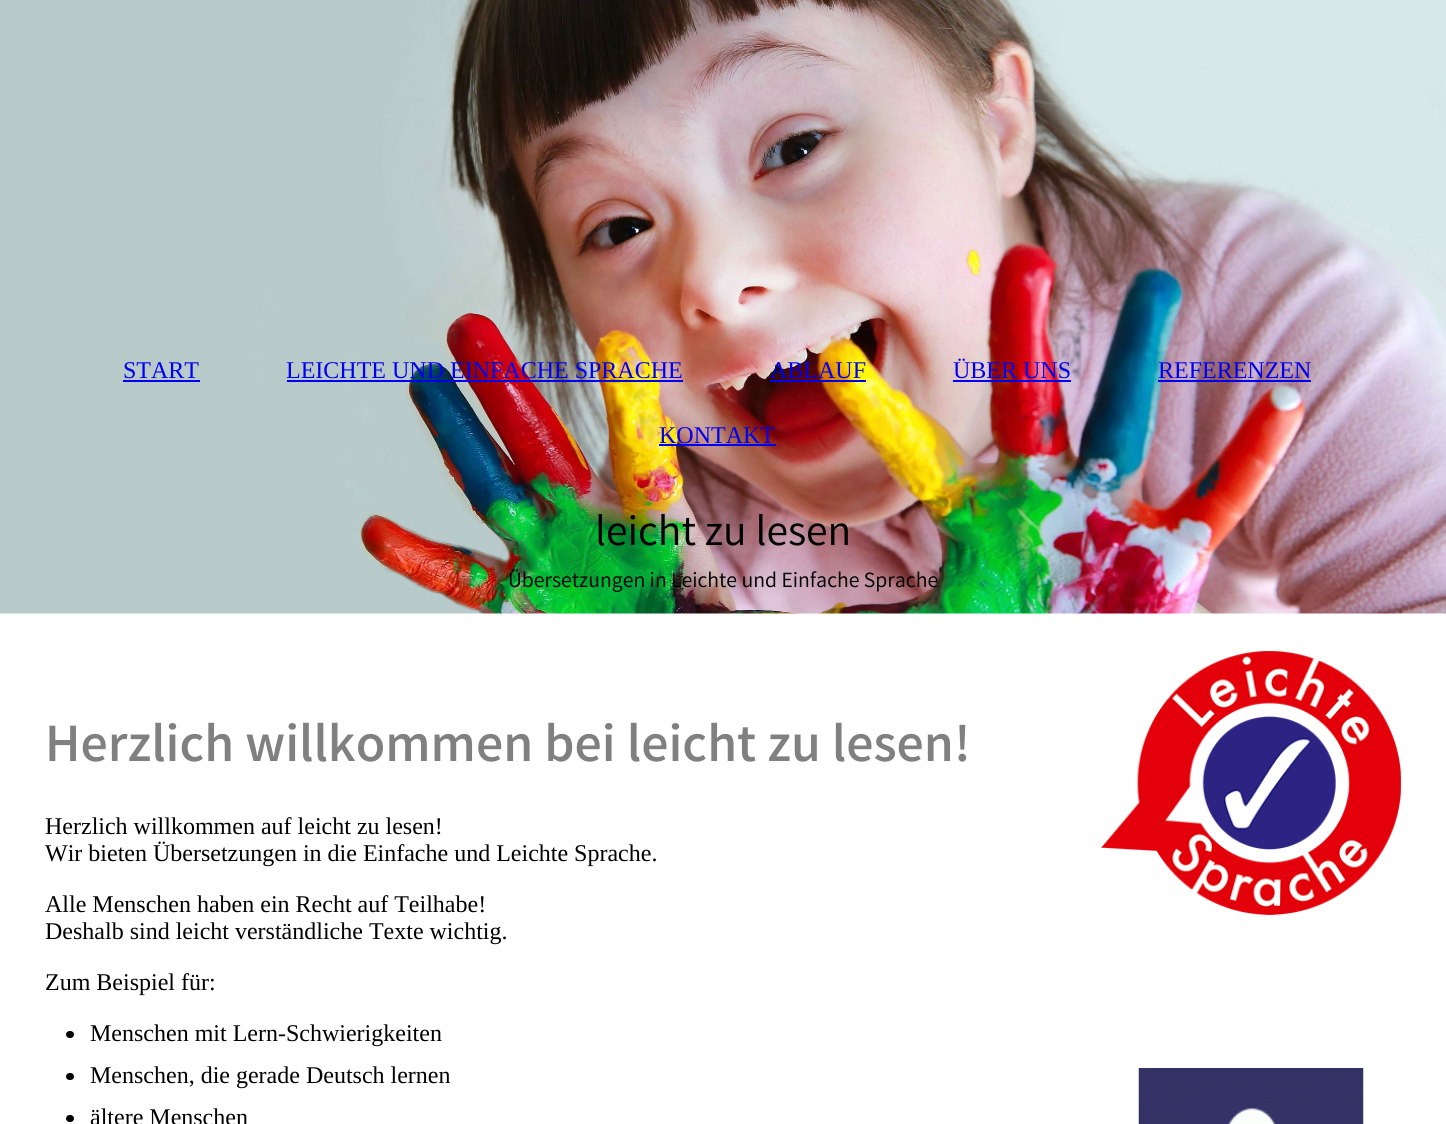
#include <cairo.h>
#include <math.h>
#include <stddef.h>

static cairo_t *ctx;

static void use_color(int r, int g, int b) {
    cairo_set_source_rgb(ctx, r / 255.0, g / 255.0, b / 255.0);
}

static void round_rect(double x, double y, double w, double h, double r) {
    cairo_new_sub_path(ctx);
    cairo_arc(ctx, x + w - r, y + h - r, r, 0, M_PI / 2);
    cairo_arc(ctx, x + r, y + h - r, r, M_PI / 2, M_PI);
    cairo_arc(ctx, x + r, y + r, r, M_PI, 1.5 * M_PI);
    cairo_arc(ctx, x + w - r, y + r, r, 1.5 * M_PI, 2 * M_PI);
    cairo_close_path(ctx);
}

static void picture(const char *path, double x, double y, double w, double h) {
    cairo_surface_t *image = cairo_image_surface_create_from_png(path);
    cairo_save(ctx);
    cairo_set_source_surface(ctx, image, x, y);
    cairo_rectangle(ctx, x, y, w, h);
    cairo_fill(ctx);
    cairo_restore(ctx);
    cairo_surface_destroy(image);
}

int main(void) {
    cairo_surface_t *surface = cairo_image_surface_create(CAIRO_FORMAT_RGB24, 1446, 1124);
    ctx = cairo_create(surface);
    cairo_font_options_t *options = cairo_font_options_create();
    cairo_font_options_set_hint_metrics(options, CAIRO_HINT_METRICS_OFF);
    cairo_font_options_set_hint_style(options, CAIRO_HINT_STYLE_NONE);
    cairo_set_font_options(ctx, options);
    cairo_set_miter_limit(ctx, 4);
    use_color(255, 255, 255);
    cairo_paint(ctx);
    picture("img1.png", 0, 0, 1446, 614);
    cairo_select_font_face(ctx, "Liberation Serif", CAIRO_FONT_SLANT_NORMAL, CAIRO_FONT_WEIGHT_NORMAL);
    cairo_set_font_size(ctx, 24);
    use_color(0, 0, 238);
    cairo_move_to(ctx, 123, 378);
    cairo_show_text(ctx, "START");
    cairo_rectangle(ctx, 123, 380, 77, 2);
    cairo_fill(ctx);
    cairo_move_to(ctx, 286, 378);
    cairo_show_text(ctx, "LEICHTE UND EINFACHE SPRACHE");
    cairo_rectangle(ctx, 287, 380, 396, 2);
    cairo_fill(ctx);
    cairo_move_to(ctx, 770, 378);
    cairo_show_text(ctx, "ABLAUF");
    cairo_rectangle(ctx, 770, 380, 96, 2);
    cairo_fill(ctx);
    cairo_move_to(ctx, 953, 378);
    cairo_show_text(ctx, "ÜBER UNS");
    cairo_rectangle(ctx, 953, 380, 118, 2);
    cairo_fill(ctx);
    cairo_move_to(ctx, 1158, 378);
    cairo_show_text(ctx, "REFERENZEN");
    cairo_rectangle(ctx, 1158, 380, 153, 2);
    cairo_fill(ctx);
    cairo_move_to(ctx, 659, 443);
    cairo_show_text(ctx, "KONTAKT");
    cairo_rectangle(ctx, 659, 444, 117, 2);
    cairo_fill(ctx);
    cairo_select_font_face(ctx, "Varta", CAIRO_FONT_SLANT_NORMAL, CAIRO_FONT_WEIGHT_NORMAL);
    cairo_set_font_size(ctx, 43.5);
    use_color(0, 0, 0);
    cairo_move_to(ctx, 595, 545);
    cairo_show_text(ctx, "leicht zu lesen");
    cairo_set_font_size(ctx, 21.7);
    cairo_move_to(ctx, 508, 587);
    cairo_show_text(ctx, "Übersetzungen in Leichte und Einfache Sprache");
    cairo_select_font_face(ctx, "Varta", CAIRO_FONT_SLANT_NORMAL, CAIRO_FONT_WEIGHT_BOLD);
    cairo_set_font_size(ctx, 54);
    use_color(128, 128, 128);
    cairo_move_to(ctx, 45, 761);
    cairo_show_text(ctx, "Herzlich willkommen bei leicht zu lesen!");
    cairo_select_font_face(ctx, "Liberation Serif", CAIRO_FONT_SLANT_NORMAL, CAIRO_FONT_WEIGHT_NORMAL);
    cairo_set_font_size(ctx, 24);
    use_color(0, 0, 0);
    cairo_move_to(ctx, 45, 834);
    cairo_show_text(ctx, "Herzlich willkommen auf leicht zu lesen!");
    cairo_move_to(ctx, 45, 861);
    cairo_show_text(ctx, "Wir bieten Übersetzungen in die Einfache und Leichte Sprache.");
    cairo_move_to(ctx, 45, 912);
    cairo_show_text(ctx, "Alle Menschen haben ein Recht auf Teilhabe!");
    cairo_move_to(ctx, 45, 939);
    cairo_show_text(ctx, "Deshalb sind leicht verständliche Texte wichtig.");
    cairo_move_to(ctx, 45, 990);
    cairo_show_text(ctx, "Zum Beispiel für:");
    round_rect(66, 1031, 8, 7, 3.5);
    cairo_fill(ctx);
    cairo_move_to(ctx, 90, 1041);
    cairo_show_text(ctx, "Menschen mit Lern-Schwierigkeiten");
    round_rect(66, 1073, 8, 7, 3.5);
    cairo_fill(ctx);
    cairo_move_to(ctx, 90, 1083);
    cairo_show_text(ctx, "Menschen, die gerade Deutsch lernen");
    round_rect(66, 1115, 8, 7, 3.5);
    cairo_fill(ctx);
    cairo_move_to(ctx, 90, 1125);
    cairo_show_text(ctx, "ältere Menschen");
    picture("img2.png", 1101, 651, 300, 264);
    picture("img3.png", 1138, 1068, 226, 56);
    cairo_surface_write_to_png(surface, "result.png");
    cairo_font_options_destroy(options);
    cairo_destroy(ctx);
    cairo_surface_destroy(surface);
    return 0;
}
